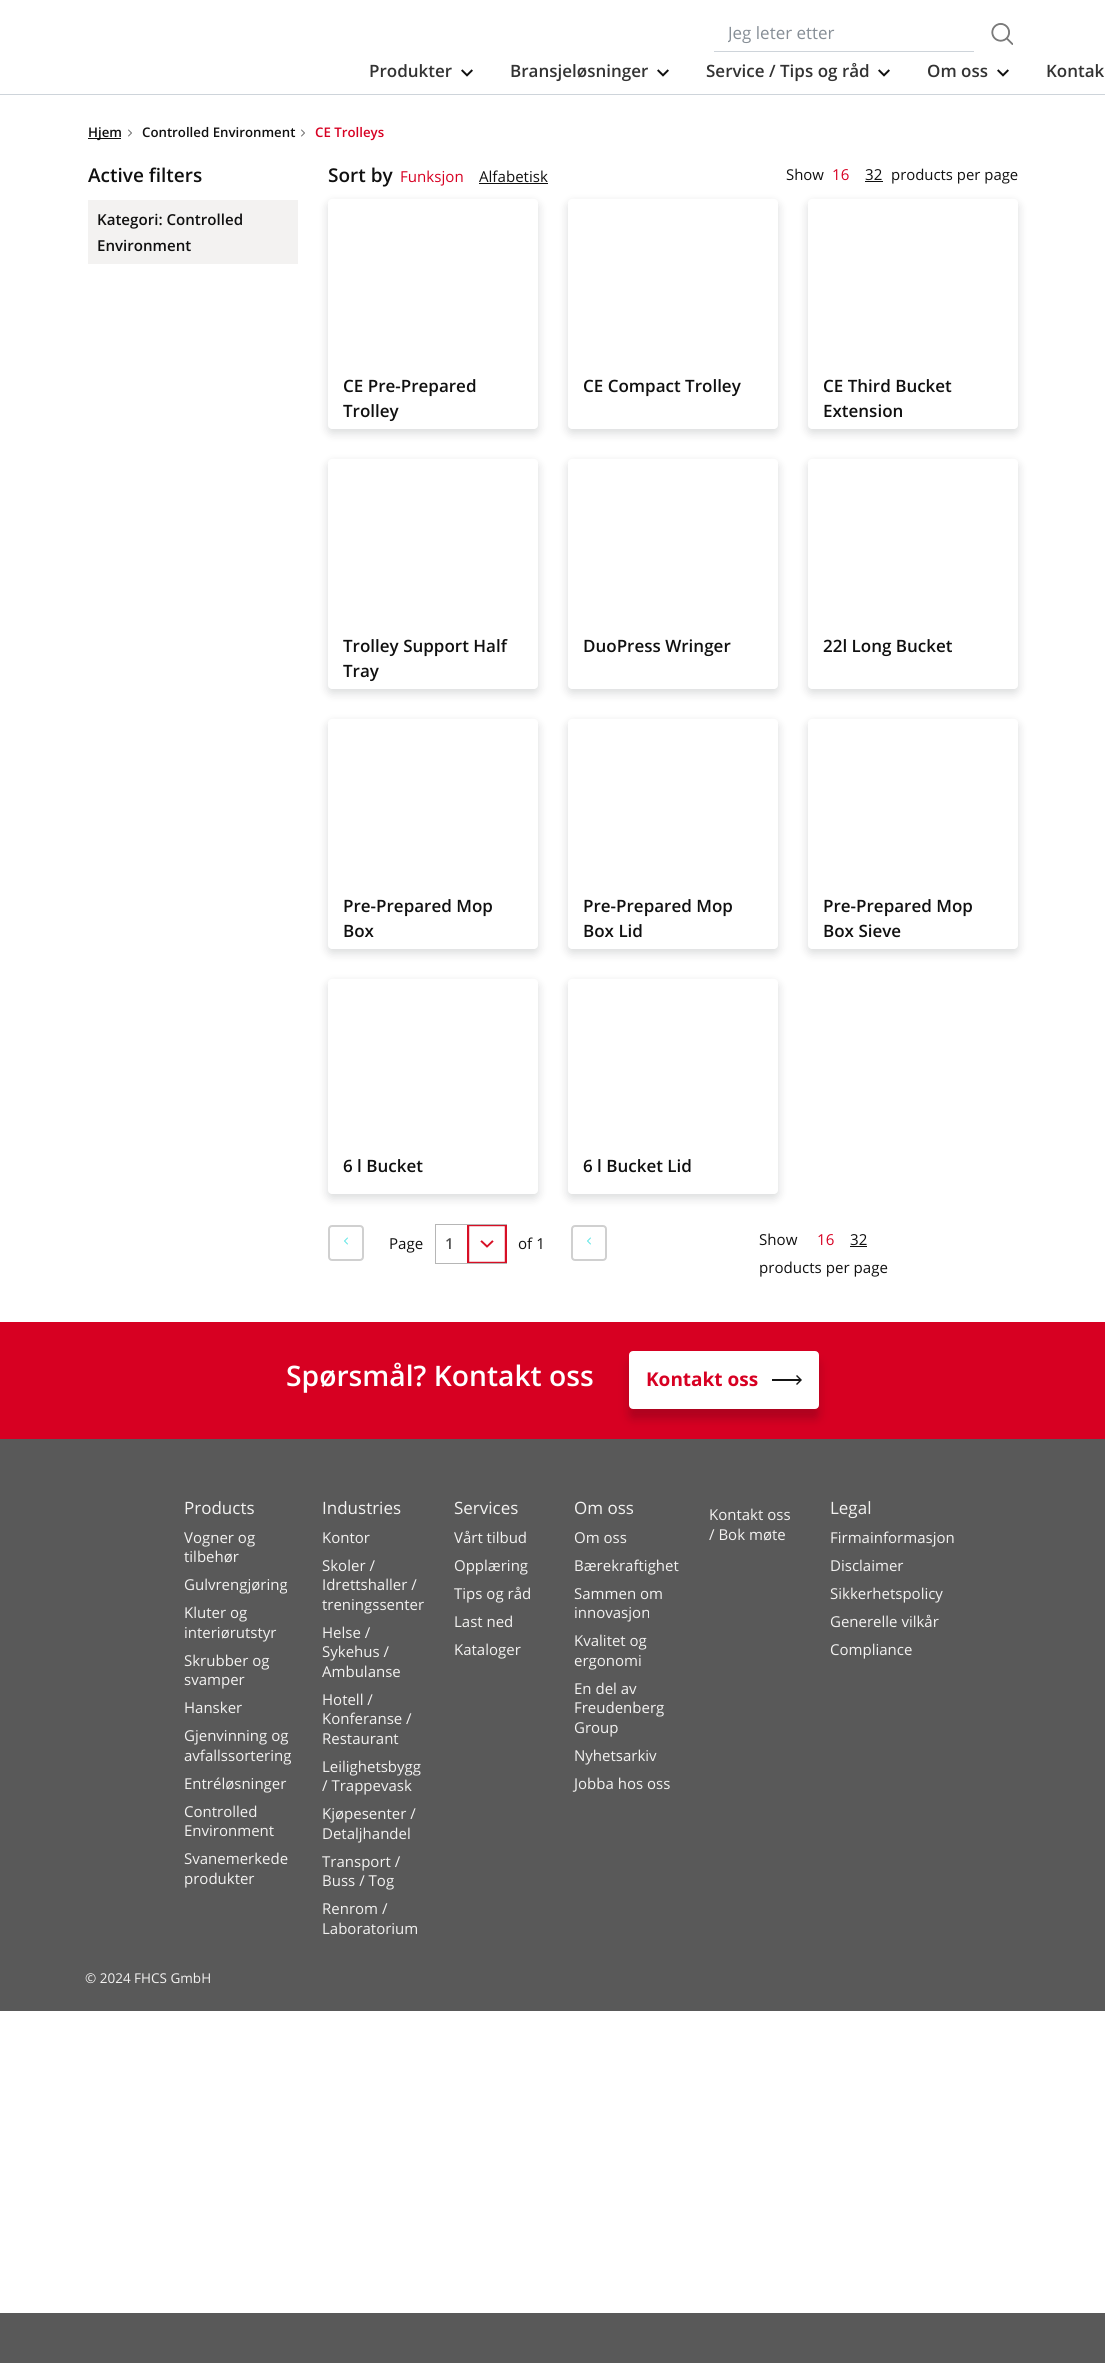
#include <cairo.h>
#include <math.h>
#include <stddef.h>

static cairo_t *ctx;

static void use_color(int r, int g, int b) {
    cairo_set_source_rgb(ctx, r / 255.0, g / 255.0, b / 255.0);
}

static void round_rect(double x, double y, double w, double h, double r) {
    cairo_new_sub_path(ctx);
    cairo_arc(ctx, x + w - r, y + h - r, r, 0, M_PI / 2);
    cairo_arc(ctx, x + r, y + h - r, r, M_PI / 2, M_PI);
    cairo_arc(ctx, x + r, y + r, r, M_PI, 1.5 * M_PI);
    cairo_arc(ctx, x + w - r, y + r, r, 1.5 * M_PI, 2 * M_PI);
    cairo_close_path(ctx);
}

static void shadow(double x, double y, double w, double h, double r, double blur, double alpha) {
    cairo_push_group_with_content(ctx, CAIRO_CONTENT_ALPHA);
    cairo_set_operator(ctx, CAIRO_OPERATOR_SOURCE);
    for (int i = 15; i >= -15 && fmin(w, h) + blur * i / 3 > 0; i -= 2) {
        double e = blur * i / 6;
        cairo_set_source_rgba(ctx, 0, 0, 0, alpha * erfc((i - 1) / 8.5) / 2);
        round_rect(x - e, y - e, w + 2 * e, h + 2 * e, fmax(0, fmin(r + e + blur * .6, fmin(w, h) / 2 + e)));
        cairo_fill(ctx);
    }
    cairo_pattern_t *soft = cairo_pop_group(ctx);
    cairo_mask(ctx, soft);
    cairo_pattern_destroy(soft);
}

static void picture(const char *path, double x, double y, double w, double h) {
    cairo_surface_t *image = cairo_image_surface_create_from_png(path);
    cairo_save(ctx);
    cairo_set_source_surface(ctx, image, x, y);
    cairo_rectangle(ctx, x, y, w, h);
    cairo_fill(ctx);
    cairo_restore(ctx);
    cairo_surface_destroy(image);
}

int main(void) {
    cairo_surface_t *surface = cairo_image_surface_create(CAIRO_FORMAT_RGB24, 1105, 2363);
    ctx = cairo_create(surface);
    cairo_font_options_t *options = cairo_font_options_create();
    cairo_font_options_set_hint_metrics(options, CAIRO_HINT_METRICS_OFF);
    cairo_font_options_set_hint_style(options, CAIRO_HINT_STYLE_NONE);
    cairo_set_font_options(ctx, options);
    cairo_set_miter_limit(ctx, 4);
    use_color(255, 255, 255);
    cairo_paint(ctx);
    use_color(206, 212, 218);
    cairo_rectangle(ctx, 0, 94, 1105, 1);
    cairo_fill(ctx);
    cairo_rectangle(ctx, 714, 51, 260, 1);
    cairo_fill(ctx);
    cairo_save(ctx);
    cairo_rectangle(ctx, 728, 21, 233, 23);
    cairo_clip(ctx);
    cairo_select_font_face(ctx, "Open Sans", CAIRO_FONT_SLANT_NORMAL, CAIRO_FONT_WEIGHT_NORMAL);
    cairo_set_font_size(ctx, 17);
    use_color(134, 142, 150);
    cairo_move_to(ctx, 728, 39);
    cairo_show_text(ctx, "Jeg leter etter");
    cairo_restore(ctx);
    picture("img1.png", 991, 23, 22, 22);
    cairo_select_font_face(ctx, "Open Sans SemiBold", CAIRO_FONT_SLANT_NORMAL, CAIRO_FONT_WEIGHT_NORMAL);
    cairo_set_font_size(ctx, 17);
    use_color(51, 51, 51);
    cairo_move_to(ctx, 369, 77);
    cairo_show_text(ctx, "Produkter");
    picture("img2.png", 461, 69, 12, 8);
    cairo_move_to(ctx, 510, 77);
    cairo_show_text(ctx, "Bransjeløsninger");
    picture("img2.png", 657, 69, 12, 8);
    cairo_move_to(ctx, 706, 77);
    cairo_show_text(ctx, "Service / Tips og råd");
    picture("img2.png", 878, 69, 12, 8);
    cairo_move_to(ctx, 927, 77);
    cairo_show_text(ctx, "Om oss");
    picture("img2.png", 997, 69, 12, 8);
    cairo_move_to(ctx, 1046, 77);
    cairo_show_text(ctx, "Kontak");
    use_color(16, 16, 16);
    cairo_rectangle(ctx, 88, 138, 33, 1);
    cairo_fill(ctx);
    cairo_set_font_size(ctx, 13.25);
    cairo_move_to(ctx, 88, 137);
    cairo_show_text(ctx, "Hjem");
    picture("img3.png", 128, 129, 4, 8);
    cairo_move_to(ctx, 142, 137);
    cairo_show_text(ctx, "Controlled Environment");
    picture("img3.png", 301, 129, 4, 8);
    use_color(215, 0, 34);
    cairo_move_to(ctx, 315, 137);
    cairo_show_text(ctx, "CE Trolleys");
    cairo_set_font_size(ctx, 19);
    use_color(16, 16, 16);
    cairo_move_to(ctx, 88, 182);
    cairo_show_text(ctx, "Active filters");
    use_color(243, 242, 241);
    cairo_rectangle(ctx, 88, 200, 210, 64);
    cairo_fill(ctx);
    cairo_set_font_size(ctx, 15.1);
    use_color(16, 16, 16);
    cairo_move_to(ctx, 97, 225);
    cairo_show_text(ctx, "Kategori: Controlled");
    cairo_move_to(ctx, 97, 251);
    cairo_show_text(ctx, "Environment");
    cairo_set_font_size(ctx, 19);
    cairo_move_to(ctx, 328, 182);
    cairo_show_text(ctx, "Sort by");
    cairo_select_font_face(ctx, "Open Sans", CAIRO_FONT_SLANT_NORMAL, CAIRO_FONT_WEIGHT_NORMAL);
    cairo_set_font_size(ctx, 15.1);
    use_color(215, 0, 34);
    cairo_move_to(ctx, 400, 182);
    cairo_show_text(ctx, "Funksjon");
    use_color(16, 16, 16);
    cairo_move_to(ctx, 479, 182);
    cairo_show_text(ctx, "Alfabetisk");
    cairo_rectangle(ctx, 479, 183, 69, 1);
    cairo_fill(ctx);
    cairo_set_font_size(ctx, 14.9);
    cairo_move_to(ctx, 786, 180);
    cairo_show_text(ctx, "Show");
    cairo_set_font_size(ctx, 15.1);
    use_color(215, 0, 34);
    cairo_move_to(ctx, 832, 180);
    cairo_show_text(ctx, "16");
    use_color(16, 16, 16);
    cairo_move_to(ctx, 865, 180);
    cairo_show_text(ctx, "32");
    cairo_rectangle(ctx, 865, 181, 18, 1);
    cairo_fill(ctx);
    cairo_set_font_size(ctx, 14.9);
    cairo_move_to(ctx, 891, 180);
    cairo_show_text(ctx, "products per page");
    use_color(3, 9, 14);
    shadow(328, 203, 210, 230, 4, 5, 0.15);
    use_color(255, 255, 255);
    round_rect(328, 199, 210, 230, 4);
    cairo_fill(ctx);
    cairo_select_font_face(ctx, "Open Sans SemiBold", CAIRO_FONT_SLANT_NORMAL, CAIRO_FONT_WEIGHT_NORMAL);
    cairo_set_font_size(ctx, 17);
    use_color(16, 16, 16);
    cairo_move_to(ctx, 343, 392);
    cairo_show_text(ctx, "CE Pre-Prepared");
    cairo_move_to(ctx, 343, 417);
    cairo_show_text(ctx, "Trolley");
    use_color(3, 9, 14);
    shadow(568, 203, 210, 230, 4, 5, 0.15);
    use_color(255, 255, 255);
    round_rect(568, 199, 210, 230, 4);
    cairo_fill(ctx);
    use_color(16, 16, 16);
    cairo_move_to(ctx, 583, 392);
    cairo_show_text(ctx, "CE Compact Trolley");
    use_color(3, 9, 14);
    shadow(808, 203, 210, 230, 4, 5, 0.15);
    use_color(255, 255, 255);
    round_rect(808, 199, 210, 230, 4);
    cairo_fill(ctx);
    use_color(16, 16, 16);
    cairo_move_to(ctx, 823, 392);
    cairo_show_text(ctx, "CE Third Bucket");
    cairo_move_to(ctx, 823, 417);
    cairo_show_text(ctx, "Extension");
    use_color(3, 9, 14);
    shadow(328, 463, 210, 230, 4, 5, 0.15);
    use_color(255, 255, 255);
    round_rect(328, 459, 210, 230, 4);
    cairo_fill(ctx);
    use_color(16, 16, 16);
    cairo_move_to(ctx, 343, 652);
    cairo_show_text(ctx, "Trolley Support Half");
    cairo_move_to(ctx, 343, 677);
    cairo_show_text(ctx, "Tray");
    use_color(3, 9, 14);
    shadow(568, 463, 210, 230, 4, 5, 0.15);
    use_color(255, 255, 255);
    round_rect(568, 459, 210, 230, 4);
    cairo_fill(ctx);
    use_color(16, 16, 16);
    cairo_move_to(ctx, 583, 652);
    cairo_show_text(ctx, "DuoPress Wringer");
    use_color(3, 9, 14);
    shadow(808, 463, 210, 230, 4, 5, 0.15);
    use_color(255, 255, 255);
    round_rect(808, 459, 210, 230, 4);
    cairo_fill(ctx);
    use_color(16, 16, 16);
    cairo_move_to(ctx, 823, 652);
    cairo_show_text(ctx, "22l Long Bucket");
    use_color(3, 9, 14);
    shadow(328, 723, 210, 230, 4, 5, 0.15);
    use_color(255, 255, 255);
    round_rect(328, 719, 210, 230, 4);
    cairo_fill(ctx);
    use_color(16, 16, 16);
    cairo_move_to(ctx, 343, 912);
    cairo_show_text(ctx, "Pre-Prepared Mop");
    cairo_move_to(ctx, 343, 937);
    cairo_show_text(ctx, "Box");
    use_color(3, 9, 14);
    shadow(568, 723, 210, 230, 4, 5, 0.15);
    use_color(255, 255, 255);
    round_rect(568, 719, 210, 230, 4);
    cairo_fill(ctx);
    use_color(16, 16, 16);
    cairo_move_to(ctx, 583, 912);
    cairo_show_text(ctx, "Pre-Prepared Mop");
    cairo_move_to(ctx, 583, 937);
    cairo_show_text(ctx, "Box Lid");
    use_color(3, 9, 14);
    shadow(808, 723, 210, 230, 4, 5, 0.15);
    use_color(255, 255, 255);
    round_rect(808, 719, 210, 230, 4);
    cairo_fill(ctx);
    use_color(16, 16, 16);
    cairo_move_to(ctx, 823, 912);
    cairo_show_text(ctx, "Pre-Prepared Mop");
    cairo_move_to(ctx, 823, 937);
    cairo_show_text(ctx, "Box Sieve");
    use_color(3, 9, 14);
    shadow(328, 983, 210, 215, 4, 5, 0.15);
    use_color(255, 255, 255);
    round_rect(328, 979, 210, 215, 4);
    cairo_fill(ctx);
    use_color(16, 16, 16);
    cairo_move_to(ctx, 343, 1172);
    cairo_show_text(ctx, "6 l Bucket");
    use_color(3, 9, 14);
    shadow(568, 983, 210, 215, 4, 5, 0.15);
    use_color(255, 255, 255);
    round_rect(568, 979, 210, 215, 4);
    cairo_fill(ctx);
    use_color(16, 16, 16);
    cairo_move_to(ctx, 583, 1172);
    cairo_show_text(ctx, "6 l Bucket Lid");
    round_rect(329, 1226, 34, 34, 3);
    use_color(208, 208, 208);
    cairo_stroke(ctx);
    picture("img4.png", 344, 1237, 4, 8);
    cairo_select_font_face(ctx, "Open Sans", CAIRO_FONT_SLANT_NORMAL, CAIRO_FONT_WEIGHT_NORMAL);
    cairo_set_font_size(ctx, 15.1);
    use_color(16, 16, 16);
    cairo_move_to(ctx, 389, 1249);
    cairo_show_text(ctx, "Page");
    picture("img5.png", 467, 1225, 40, 38);
    use_color(182, 182, 182);
    cairo_rectangle(ctx, 435, 1224, 72, 1);
    cairo_fill(ctx);
    cairo_rectangle(ctx, 435, 1263, 72, 1);
    cairo_fill(ctx);
    cairo_rectangle(ctx, 435, 1224, 1, 40);
    cairo_fill(ctx);
    cairo_select_font_face(ctx, "Open Sans SemiBold", CAIRO_FONT_SLANT_NORMAL, CAIRO_FONT_WEIGHT_NORMAL);
    use_color(79, 79, 79);
    cairo_move_to(ctx, 445, 1249);
    cairo_show_text(ctx, "1");
    cairo_select_font_face(ctx, "Open Sans", CAIRO_FONT_SLANT_NORMAL, CAIRO_FONT_WEIGHT_NORMAL);
    use_color(16, 16, 16);
    cairo_move_to(ctx, 518, 1249);
    cairo_show_text(ctx, "of 1");
    round_rect(572, 1226, 34, 34, 3);
    use_color(208, 208, 208);
    cairo_stroke(ctx);
    picture("img4.png", 587, 1237, 4, 8);
    use_color(16, 16, 16);
    cairo_move_to(ctx, 759, 1245);
    cairo_show_text(ctx, "Show");
    use_color(215, 0, 34);
    cairo_move_to(ctx, 817, 1245);
    cairo_show_text(ctx, "16");
    use_color(16, 16, 16);
    cairo_move_to(ctx, 850, 1245);
    cairo_show_text(ctx, "32");
    cairo_rectangle(ctx, 850, 1246, 17, 1);
    cairo_fill(ctx);
    cairo_move_to(ctx, 759, 1273);
    cairo_show_text(ctx, "products per page");
    use_color(215, 0, 34);
    cairo_rectangle(ctx, 0, 1322, 1105, 117);
    cairo_fill(ctx);
    cairo_select_font_face(ctx, "Open Sans SemiBold", CAIRO_FONT_SLANT_NORMAL, CAIRO_FONT_WEIGHT_NORMAL);
    cairo_set_font_size(ctx, 28.25);
    use_color(255, 255, 255);
    cairo_move_to(ctx, 286, 1386);
    cairo_show_text(ctx, "Spørsmål? Kontakt oss");
    use_color(3, 9, 14);
    shadow(629, 1361, 190, 58, 4, 5, 0.2);
    use_color(255, 255, 255);
    round_rect(630, 1352, 188, 56, 3);
    cairo_fill_preserve(ctx);
    cairo_stroke(ctx);
    cairo_select_font_face(ctx, "Open Sans", CAIRO_FONT_SLANT_NORMAL, CAIRO_FONT_WEIGHT_BOLD);
    cairo_set_font_size(ctx, 19);
    use_color(215, 0, 34);
    cairo_move_to(ctx, 646, 1386);
    cairo_show_text(ctx, "Kontakt oss");
    use_color(21, 21, 21);
    cairo_new_path(ctx);
    cairo_move_to(ctx, 797, 1375);
    cairo_line_to(ctx, 796, 1376);
    cairo_line_to(ctx, 799, 1379);
    cairo_line_to(ctx, 772, 1379);
    cairo_line_to(ctx, 772, 1381);
    cairo_line_to(ctx, 799, 1381);
    cairo_line_to(ctx, 796, 1384);
    cairo_line_to(ctx, 797, 1385);
    cairo_line_to(ctx, 802, 1380);
    cairo_close_path(ctx);
    cairo_fill(ctx);
    use_color(89, 89, 89);
    cairo_rectangle(ctx, 0, 1439, 1105, 572);
    cairo_fill(ctx);
    cairo_select_font_face(ctx, "Open Sans", CAIRO_FONT_SLANT_NORMAL, CAIRO_FONT_WEIGHT_NORMAL);
    cairo_set_font_size(ctx, 17);
    use_color(243, 242, 241);
    cairo_move_to(ctx, 184, 1514);
    cairo_show_text(ctx, "Products");
    cairo_set_font_size(ctx, 15);
    cairo_move_to(ctx, 184, 1543);
    cairo_show_text(ctx, "Vogner og");
    cairo_move_to(ctx, 184, 1562);
    cairo_show_text(ctx, "tilbehør");
    cairo_move_to(ctx, 184, 1590);
    cairo_show_text(ctx, "Gulvrengjøring");
    cairo_move_to(ctx, 184, 1618);
    cairo_show_text(ctx, "Kluter og");
    cairo_move_to(ctx, 184, 1638);
    cairo_show_text(ctx, "interiørutstyr");
    cairo_move_to(ctx, 184, 1666);
    cairo_show_text(ctx, "Skrubber og");
    cairo_move_to(ctx, 184, 1685);
    cairo_show_text(ctx, "svamper");
    cairo_move_to(ctx, 184, 1713);
    cairo_show_text(ctx, "Hansker");
    cairo_move_to(ctx, 184, 1741);
    cairo_show_text(ctx, "Gjenvinning og");
    cairo_move_to(ctx, 184, 1761);
    cairo_show_text(ctx, "avfallssortering");
    cairo_move_to(ctx, 184, 1789);
    cairo_show_text(ctx, "Entréløsninger");
    cairo_move_to(ctx, 184, 1817);
    cairo_show_text(ctx, "Controlled");
    cairo_move_to(ctx, 184, 1836);
    cairo_show_text(ctx, "Environment");
    cairo_move_to(ctx, 184, 1864);
    cairo_show_text(ctx, "Svanemerkede");
    cairo_move_to(ctx, 184, 1884);
    cairo_show_text(ctx, "produkter");
    cairo_set_font_size(ctx, 17);
    cairo_move_to(ctx, 322, 1514);
    cairo_show_text(ctx, "Industries");
    cairo_set_font_size(ctx, 15);
    cairo_move_to(ctx, 322, 1543);
    cairo_show_text(ctx, "Kontor");
    cairo_move_to(ctx, 322, 1571);
    cairo_show_text(ctx, "Skoler /");
    cairo_move_to(ctx, 322, 1590);
    cairo_show_text(ctx, "Idrettshaller /");
    cairo_move_to(ctx, 322, 1610);
    cairo_show_text(ctx, "treningssenter");
    cairo_move_to(ctx, 322, 1638);
    cairo_show_text(ctx, "Helse /");
    cairo_move_to(ctx, 322, 1657);
    cairo_show_text(ctx, "Sykehus /");
    cairo_move_to(ctx, 322, 1677);
    cairo_show_text(ctx, "Ambulanse");
    cairo_move_to(ctx, 322, 1705);
    cairo_show_text(ctx, "Hotell /");
    cairo_move_to(ctx, 322, 1724);
    cairo_show_text(ctx, "Konferanse /");
    cairo_move_to(ctx, 322, 1744);
    cairo_show_text(ctx, "Restaurant");
    cairo_move_to(ctx, 322, 1772);
    cairo_show_text(ctx, "Leilighetsbygg");
    cairo_move_to(ctx, 322, 1791);
    cairo_show_text(ctx, "/ Trappevask");
    cairo_move_to(ctx, 322, 1819);
    cairo_show_text(ctx, "Kjøpesenter /");
    cairo_move_to(ctx, 322, 1839);
    cairo_show_text(ctx, "Detaljhandel");
    cairo_move_to(ctx, 322, 1867);
    cairo_show_text(ctx, "Transport /");
    cairo_move_to(ctx, 322, 1886);
    cairo_show_text(ctx, "Buss / Tog");
    cairo_move_to(ctx, 322, 1914);
    cairo_show_text(ctx, "Renrom /");
    cairo_move_to(ctx, 322, 1934);
    cairo_show_text(ctx, "Laboratorium");
    cairo_set_font_size(ctx, 17);
    cairo_move_to(ctx, 454, 1514);
    cairo_show_text(ctx, "Services");
    cairo_set_font_size(ctx, 15);
    cairo_move_to(ctx, 454, 1543);
    cairo_show_text(ctx, "Vårt tilbud");
    cairo_move_to(ctx, 454, 1571);
    cairo_show_text(ctx, "Opplæring");
    cairo_move_to(ctx, 454, 1599);
    cairo_show_text(ctx, "Tips og råd");
    cairo_move_to(ctx, 454, 1627);
    cairo_show_text(ctx, "Last ned");
    cairo_move_to(ctx, 454, 1655);
    cairo_show_text(ctx, "Kataloger");
    cairo_set_font_size(ctx, 17);
    cairo_move_to(ctx, 574, 1514);
    cairo_show_text(ctx, "Om oss");
    cairo_set_font_size(ctx, 15);
    cairo_move_to(ctx, 574, 1543);
    cairo_show_text(ctx, "Om oss");
    cairo_move_to(ctx, 574, 1571);
    cairo_show_text(ctx, "Bærekraftighet");
    cairo_move_to(ctx, 574, 1599);
    cairo_show_text(ctx, "Sammen om");
    cairo_move_to(ctx, 574, 1618);
    cairo_show_text(ctx, "innovasjon");
    cairo_move_to(ctx, 574, 1646);
    cairo_show_text(ctx, "Kvalitet og");
    cairo_move_to(ctx, 574, 1666);
    cairo_show_text(ctx, "ergonomi");
    cairo_move_to(ctx, 574, 1694);
    cairo_show_text(ctx, "En del av");
    cairo_move_to(ctx, 574, 1713);
    cairo_show_text(ctx, "Freudenberg");
    cairo_move_to(ctx, 574, 1733);
    cairo_show_text(ctx, "Group");
    cairo_move_to(ctx, 574, 1761);
    cairo_show_text(ctx, "Nyhetsarkiv");
    cairo_move_to(ctx, 574, 1789);
    cairo_show_text(ctx, "Jobba hos oss");
    cairo_move_to(ctx, 709, 1520);
    cairo_show_text(ctx, "Kontakt oss");
    cairo_move_to(ctx, 709, 1540);
    cairo_show_text(ctx, "/ Bok møte");
    cairo_set_font_size(ctx, 17);
    cairo_move_to(ctx, 830, 1514);
    cairo_show_text(ctx, "Legal");
    cairo_set_font_size(ctx, 15);
    cairo_move_to(ctx, 830, 1543);
    cairo_show_text(ctx, "Firmainformasjon");
    cairo_move_to(ctx, 830, 1571);
    cairo_show_text(ctx, "Disclaimer");
    cairo_move_to(ctx, 830, 1599);
    cairo_show_text(ctx, "Sikkerhetspolicy");
    cairo_move_to(ctx, 830, 1627);
    cairo_show_text(ctx, "Generelle vilkår");
    cairo_move_to(ctx, 830, 1655);
    cairo_show_text(ctx, "Compliance");
    cairo_set_font_size(ctx, 13.5);
    cairo_move_to(ctx, 85, 1983);
    cairo_show_text(ctx, "© 2024 FHCS GmbH");
    use_color(89, 89, 89);
    cairo_rectangle(ctx, 0, 2313, 1105, 50);
    cairo_fill(ctx);
    cairo_surface_write_to_png(surface, "result.png");
    cairo_font_options_destroy(options);
    cairo_destroy(ctx);
    cairo_surface_destroy(surface);
    return 0;
}
